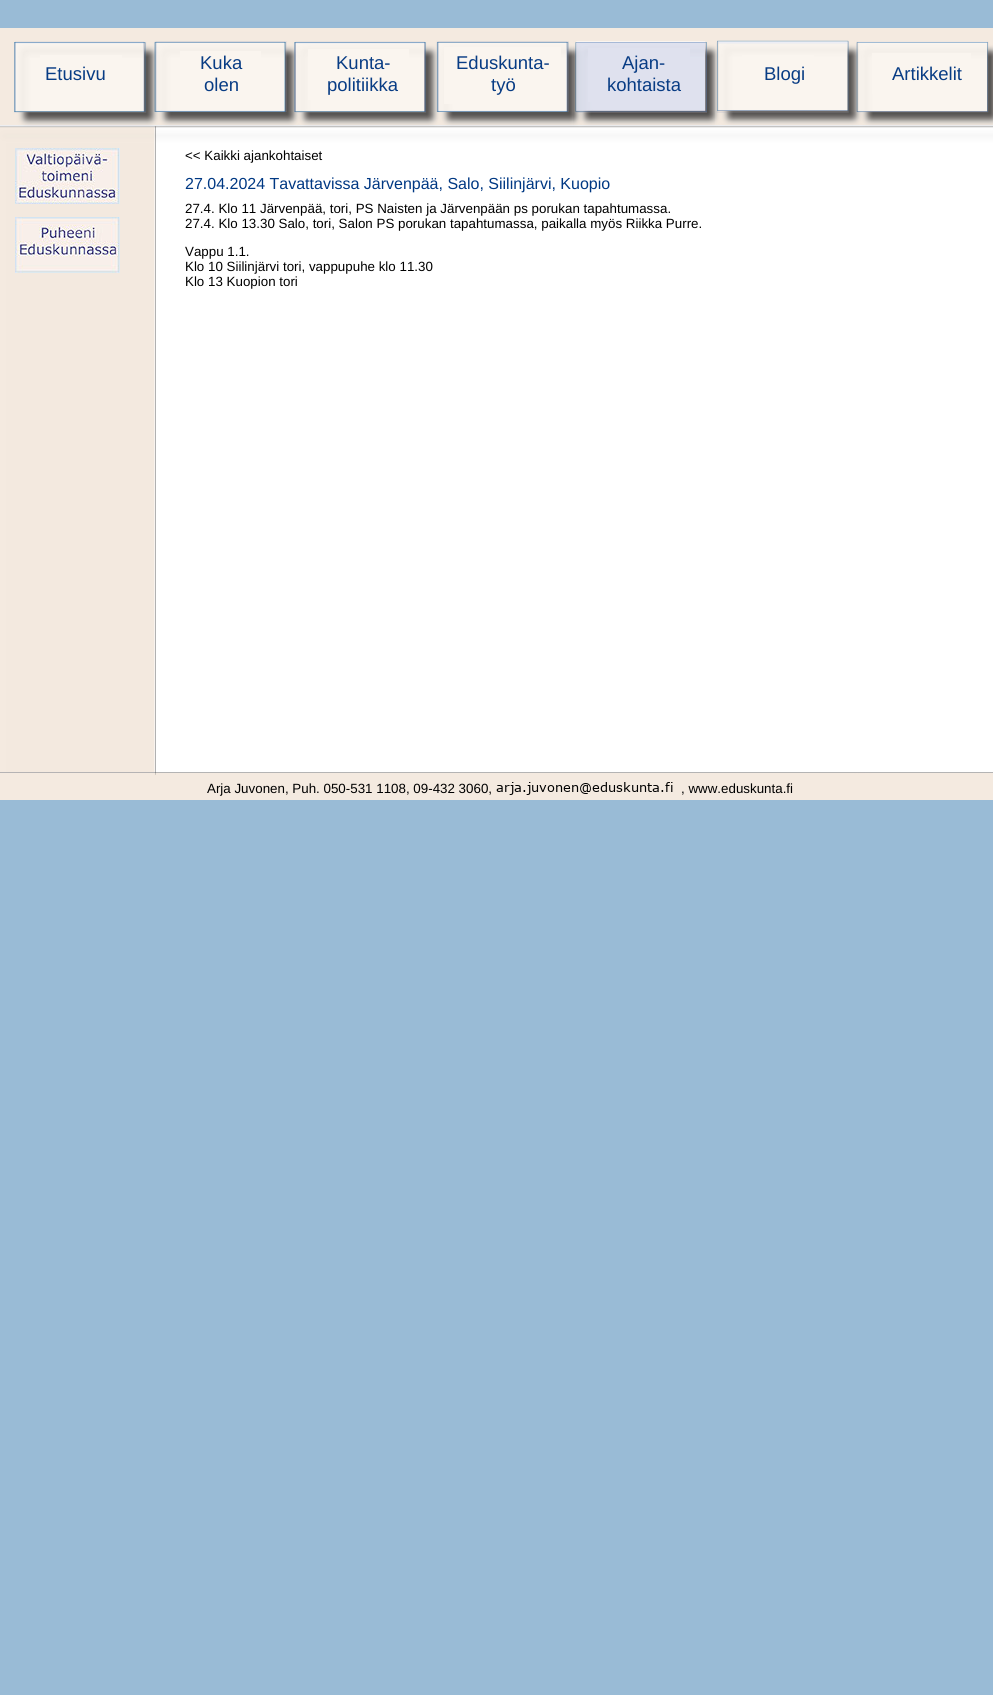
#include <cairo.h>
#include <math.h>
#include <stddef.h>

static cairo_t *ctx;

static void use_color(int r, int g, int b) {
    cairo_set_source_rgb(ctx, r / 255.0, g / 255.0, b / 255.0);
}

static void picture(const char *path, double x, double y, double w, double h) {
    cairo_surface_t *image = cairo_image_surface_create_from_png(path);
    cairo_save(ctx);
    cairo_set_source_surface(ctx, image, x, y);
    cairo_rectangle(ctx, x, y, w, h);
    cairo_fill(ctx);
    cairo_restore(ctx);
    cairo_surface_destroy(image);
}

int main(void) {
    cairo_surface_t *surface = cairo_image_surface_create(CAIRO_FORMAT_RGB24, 993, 1695);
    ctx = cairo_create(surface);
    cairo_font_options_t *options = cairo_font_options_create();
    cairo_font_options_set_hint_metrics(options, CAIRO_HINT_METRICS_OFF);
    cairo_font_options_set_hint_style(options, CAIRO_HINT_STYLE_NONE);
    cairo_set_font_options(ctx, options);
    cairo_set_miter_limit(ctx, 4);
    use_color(153, 187, 214);
    cairo_paint(ctx);
    picture("img1.png", 0, 28, 151, 98);
    cairo_select_font_face(ctx, "Liberation Sans", CAIRO_FONT_SLANT_NORMAL, CAIRO_FONT_WEIGHT_NORMAL);
    cairo_set_font_size(ctx, 18.5);
    use_color(8, 60, 132);
    cairo_move_to(ctx, 45, 80);
    cairo_show_text(ctx, "Etusivu");
    picture("img2.png", 151, 28, 141, 98);
    cairo_move_to(ctx, 200, 69);
    cairo_show_text(ctx, "Kuka");
    cairo_move_to(ctx, 204, 91);
    cairo_show_text(ctx, "olen");
    picture("img3.png", 292, 28, 142, 98);
    cairo_move_to(ctx, 336, 69);
    cairo_show_text(ctx, "Kunta-");
    cairo_move_to(ctx, 327, 91);
    cairo_show_text(ctx, "politiikka");
    picture("img4.png", 434, 28, 139, 98);
    cairo_move_to(ctx, 456, 69);
    cairo_show_text(ctx, "Eduskunta-");
    cairo_move_to(ctx, 491, 91);
    cairo_show_text(ctx, "työ");
    picture("img5.png", 573, 28, 142, 98);
    cairo_move_to(ctx, 622, 69);
    cairo_show_text(ctx, "Ajan-");
    cairo_move_to(ctx, 607, 91);
    cairo_show_text(ctx, "kohtaista");
    picture("img6.png", 715, 28, 140, 98);
    cairo_move_to(ctx, 764, 80);
    cairo_show_text(ctx, "Blogi");
    picture("img7.png", 855, 28, 138, 98);
    cairo_move_to(ctx, 892, 80);
    cairo_show_text(ctx, "Artikkelit");
    picture("img8.png", 0, 126, 993, 17);
    use_color(255, 255, 255);
    cairo_rectangle(ctx, 156, 143, 837, 629);
    cairo_fill(ctx);
    picture("img9.png", 0, 143, 156, 629);
    picture("img10.png", 15, 148, 105, 56);
    picture("img11.png", 15, 217, 105, 56);
    cairo_set_font_size(ctx, 13.35);
    use_color(0, 0, 0);
    cairo_move_to(ctx, 185, 160);
    cairo_show_text(ctx, "<< Kaikki ajankohtaiset");
    cairo_set_font_size(ctx, 16);
    use_color(0, 56, 131);
    cairo_move_to(ctx, 185, 189);
    cairo_show_text(ctx, "27.04.2024 Tavattavissa Järvenpää, Salo, Siilinjärvi, Kuopio");
    cairo_set_font_size(ctx, 13.35);
    use_color(0, 0, 0);
    cairo_move_to(ctx, 185, 213);
    cairo_show_text(ctx, "27.4. Klo 11 Järvenpää, tori, PS Naisten ja Järvenpään ps porukan tapahtumassa.");
    cairo_move_to(ctx, 185, 228);
    cairo_show_text(ctx, "27.4. Klo 13.30 Salo, tori, Salon PS porukan tapahtumassa, paikalla myös Riikka Purre.");
    cairo_move_to(ctx, 185, 256);
    cairo_show_text(ctx, "Vappu 1.1.");
    cairo_move_to(ctx, 185, 271);
    cairo_show_text(ctx, "Klo 10 Siilinjärvi tori, vappupuhe klo 11.30");
    cairo_move_to(ctx, 185, 286);
    cairo_show_text(ctx, "Klo 13 Kuopion tori");
    picture("img12.png", 0, 772, 993, 28);
    cairo_move_to(ctx, 207, 793);
    cairo_show_text(ctx, "Arja Juvonen, Puh. 050-531 1108, 09-432 3060,");
    picture("img13.png", 496, 782, 177, 13);
    cairo_move_to(ctx, 681, 793);
    cairo_show_text(ctx, ", www.eduskunta.fi");
    cairo_surface_write_to_png(surface, "result.png");
    cairo_font_options_destroy(options);
    cairo_destroy(ctx);
    cairo_surface_destroy(surface);
    return 0;
}
